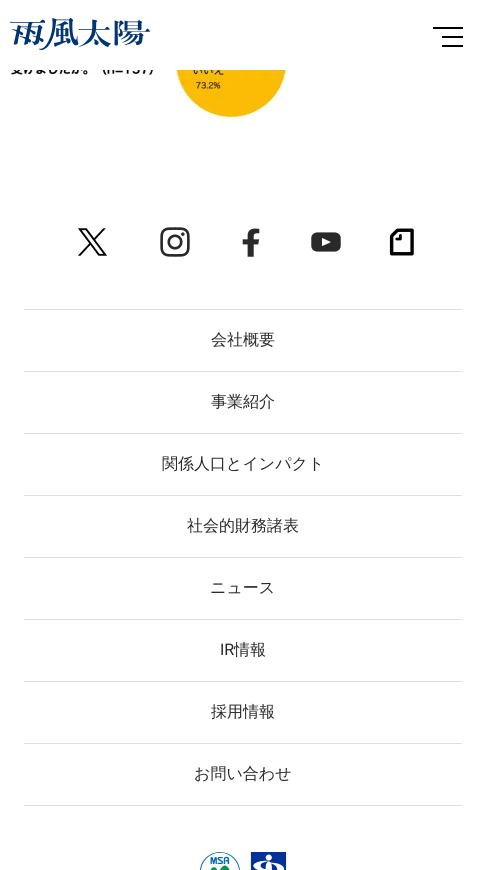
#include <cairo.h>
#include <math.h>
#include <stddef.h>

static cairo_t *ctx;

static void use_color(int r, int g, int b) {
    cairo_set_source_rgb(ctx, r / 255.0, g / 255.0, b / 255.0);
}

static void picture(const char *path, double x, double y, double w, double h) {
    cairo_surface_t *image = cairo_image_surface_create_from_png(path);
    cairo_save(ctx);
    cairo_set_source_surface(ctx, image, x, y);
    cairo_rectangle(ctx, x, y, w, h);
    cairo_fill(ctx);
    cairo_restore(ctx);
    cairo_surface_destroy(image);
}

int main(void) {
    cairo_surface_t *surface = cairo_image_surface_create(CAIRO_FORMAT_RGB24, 486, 870);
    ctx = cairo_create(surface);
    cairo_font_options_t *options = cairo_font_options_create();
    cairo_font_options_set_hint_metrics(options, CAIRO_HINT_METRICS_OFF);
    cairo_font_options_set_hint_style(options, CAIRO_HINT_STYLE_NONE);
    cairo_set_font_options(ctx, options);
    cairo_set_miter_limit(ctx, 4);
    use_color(255, 255, 255);
    cairo_paint(ctx);
    picture("img1.png", 10, 18, 140, 32);
    use_color(0, 0, 0);
    cairo_rectangle(ctx, 433, 27, 30, 2);
    cairo_fill(ctx);
    cairo_rectangle(ctx, 442, 36, 21, 2);
    cairo_fill(ctx);
    cairo_rectangle(ctx, 442, 45, 21, 2);
    cairo_fill(ctx);
    picture("img2.png", 9, 70, 279, 50);
    picture("img3.png", 78, 228, 29, 28);
    picture("img4.png", 160, 227, 30, 30);
    picture("img5.png", 242, 228, 18, 29);
    picture("img6.png", 311, 232, 30, 20);
    picture("img7.png", 389, 228, 25, 28);
    use_color(226, 222, 222);
    cairo_rectangle(ctx, 24, 309, 438, 1);
    cairo_fill(ctx);
    cairo_rectangle(ctx, 24, 371, 438, 1);
    cairo_fill(ctx);
    cairo_select_font_face(ctx, "WenQuanYi Zen Hei Medium", CAIRO_FONT_SLANT_NORMAL, CAIRO_FONT_WEIGHT_NORMAL);
    cairo_set_font_size(ctx, 16);
    use_color(41, 41, 41);
    cairo_move_to(ctx, 211, 345);
    cairo_show_text(ctx, "会社概要");
    use_color(226, 222, 222);
    cairo_rectangle(ctx, 24, 433, 438, 1);
    cairo_fill(ctx);
    use_color(41, 41, 41);
    cairo_move_to(ctx, 211, 407);
    cairo_show_text(ctx, "事業紹介");
    use_color(226, 222, 222);
    cairo_rectangle(ctx, 24, 495, 438, 1);
    cairo_fill(ctx);
    use_color(41, 41, 41);
    cairo_move_to(ctx, 162, 469);
    cairo_show_text(ctx, "関係人口とインパクト");
    use_color(226, 222, 222);
    cairo_rectangle(ctx, 24, 557, 438, 1);
    cairo_fill(ctx);
    use_color(41, 41, 41);
    cairo_move_to(ctx, 187, 531);
    cairo_show_text(ctx, "社会的財務諸表");
    use_color(226, 222, 222);
    cairo_rectangle(ctx, 24, 619, 438, 1);
    cairo_fill(ctx);
    use_color(41, 41, 41);
    cairo_move_to(ctx, 210, 593);
    cairo_show_text(ctx, "ニュース");
    use_color(226, 222, 222);
    cairo_rectangle(ctx, 24, 681, 438, 1);
    cairo_fill(ctx);
    cairo_select_font_face(ctx, "Roboto", CAIRO_FONT_SLANT_NORMAL, CAIRO_FONT_WEIGHT_NORMAL);
    use_color(41, 41, 41);
    cairo_move_to(ctx, 220, 655);
    cairo_show_text(ctx, "IR");
    cairo_select_font_face(ctx, "WenQuanYi Zen Hei Medium", CAIRO_FONT_SLANT_NORMAL, CAIRO_FONT_WEIGHT_NORMAL);
    cairo_move_to(ctx, 234, 655);
    cairo_show_text(ctx, "情報");
    use_color(226, 222, 222);
    cairo_rectangle(ctx, 24, 743, 438, 1);
    cairo_fill(ctx);
    use_color(41, 41, 41);
    cairo_move_to(ctx, 211, 717);
    cairo_show_text(ctx, "採用情報");
    use_color(226, 222, 222);
    cairo_rectangle(ctx, 24, 805, 438, 1);
    cairo_fill(ctx);
    use_color(41, 41, 41);
    cairo_move_to(ctx, 194, 779);
    cairo_show_text(ctx, "お問い合わせ");
    picture("img8.png", 200, 852, 87, 18);
    cairo_surface_write_to_png(surface, "result.png");
    cairo_font_options_destroy(options);
    cairo_destroy(ctx);
    cairo_surface_destroy(surface);
    return 0;
}
